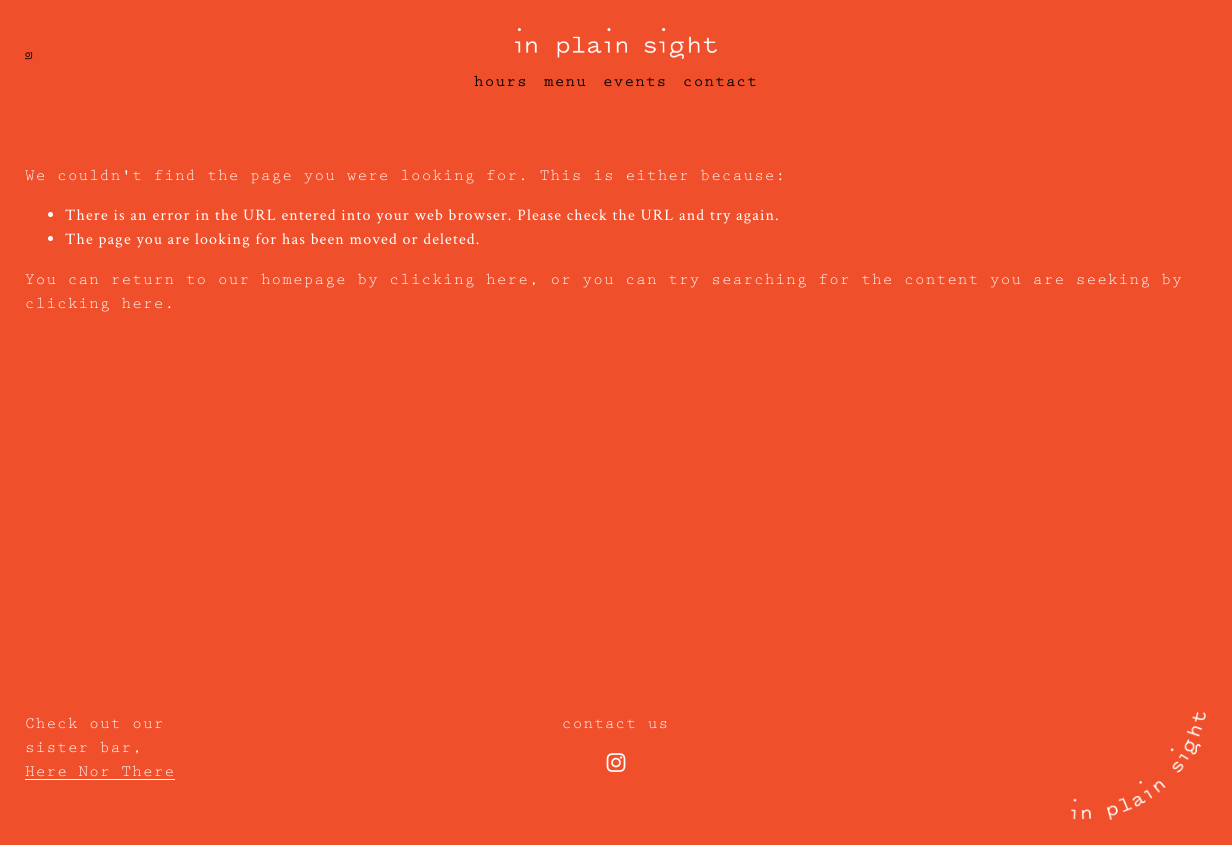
#include <cairo.h>
#include <math.h>
#include <stddef.h>

static cairo_t *ctx;

static void use_color(int r, int g, int b) {
    cairo_set_source_rgb(ctx, r / 255.0, g / 255.0, b / 255.0);
}

static void spaced_text(double x, double y, const char *s, double letter, double word) {
    cairo_move_to(ctx, x, y);
    while (*s) {
        char ch[5] = {0};
        int n = 0;
        do ch[n++] = *s++; while ((*s & 0xC0) == 0x80);
        cairo_show_text(ctx, ch);
        cairo_rel_move_to(ctx, letter + word * (*ch == ' '), 0);
    }
}

static void picture(const char *path, double x, double y, double w, double h) {
    cairo_surface_t *image = cairo_image_surface_create_from_png(path);
    cairo_save(ctx);
    cairo_set_source_surface(ctx, image, x, y);
    cairo_rectangle(ctx, x, y, w, h);
    cairo_fill(ctx);
    cairo_restore(ctx);
    cairo_surface_destroy(image);
}

int main(void) {
    cairo_surface_t *surface = cairo_image_surface_create(CAIRO_FORMAT_RGB24, 1232, 845);
    ctx = cairo_create(surface);
    cairo_font_options_t *options = cairo_font_options_create();
    cairo_font_options_set_hint_metrics(options, CAIRO_HINT_METRICS_OFF);
    cairo_font_options_set_hint_style(options, CAIRO_HINT_STYLE_NONE);
    cairo_set_font_options(ctx, options);
    cairo_set_miter_limit(ctx, 4);
    use_color(240, 79, 43);
    cairo_paint(ctx);
    picture("img1.png", 25, 52, 8, 8);
    picture("img2.png", 514, 28, 203, 31);
    cairo_select_font_face(ctx, "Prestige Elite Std", CAIRO_FONT_SLANT_NORMAL, CAIRO_FONT_WEIGHT_BOLD);
    cairo_set_font_size(ctx, 16);
    use_color(0, 0, 0);
    spaced_text(474, 86, "hours", 1.12, 0);
    spaced_text(544, 86, "menu", 1.12, 0);
    spaced_text(603, 86, "events", 1.12, 0);
    spaced_text(683, 86, "contact", 1.12, 0);
    cairo_select_font_face(ctx, "Prestige Elite Std", CAIRO_FONT_SLANT_NORMAL, CAIRO_FONT_WEIGHT_NORMAL);
    use_color(255, 255, 255);
    spaced_text(25, 180, "We couldn't find the page you were looking for. This is either because:", 1.12, 0);
    cairo_new_path(ctx);
    cairo_arc(ctx, 50.5, 214.5, 2.5, 0, 2 * M_PI);
    cairo_fill(ctx);
    cairo_select_font_face(ctx, "Crimson Text", CAIRO_FONT_SLANT_NORMAL, CAIRO_FONT_WEIGHT_NORMAL);
    spaced_text(65, 220, "There is an error in the URL entered into your web browser. Please check the URL and try again.", 1.12, 0);
    cairo_new_path(ctx);
    cairo_arc(ctx, 50.5, 238.5, 2.5, 0, 2 * M_PI);
    cairo_fill(ctx);
    spaced_text(65, 244, "The page you are looking for has been moved or deleted.", 1.12, 0);
    cairo_select_font_face(ctx, "Prestige Elite Std", CAIRO_FONT_SLANT_NORMAL, CAIRO_FONT_WEIGHT_NORMAL);
    spaced_text(25, 284, "You can return to our homepage by clicking here, or you can try searching for the content you are seeking by", 1.12, 0);
    spaced_text(25, 308, "clicking here.", 1.12, 0);
    spaced_text(25, 728, "Check out our", 1.12, 0);
    spaced_text(25, 752, "sister bar,", 1.12, 0);
    spaced_text(25, 776, "Here Nor There", 1.12, 0);
    cairo_rectangle(ctx, 25, 779, 150, 1);
    cairo_fill(ctx);
    spaced_text(562, 728, "contact us", 1.12, 0);
    picture("img3.png", 1071, 712, 135, 108);
    picture("img4.png", 606, 753, 20, 19);
    cairo_surface_write_to_png(surface, "result.png");
    cairo_font_options_destroy(options);
    cairo_destroy(ctx);
    cairo_surface_destroy(surface);
    return 0;
}
